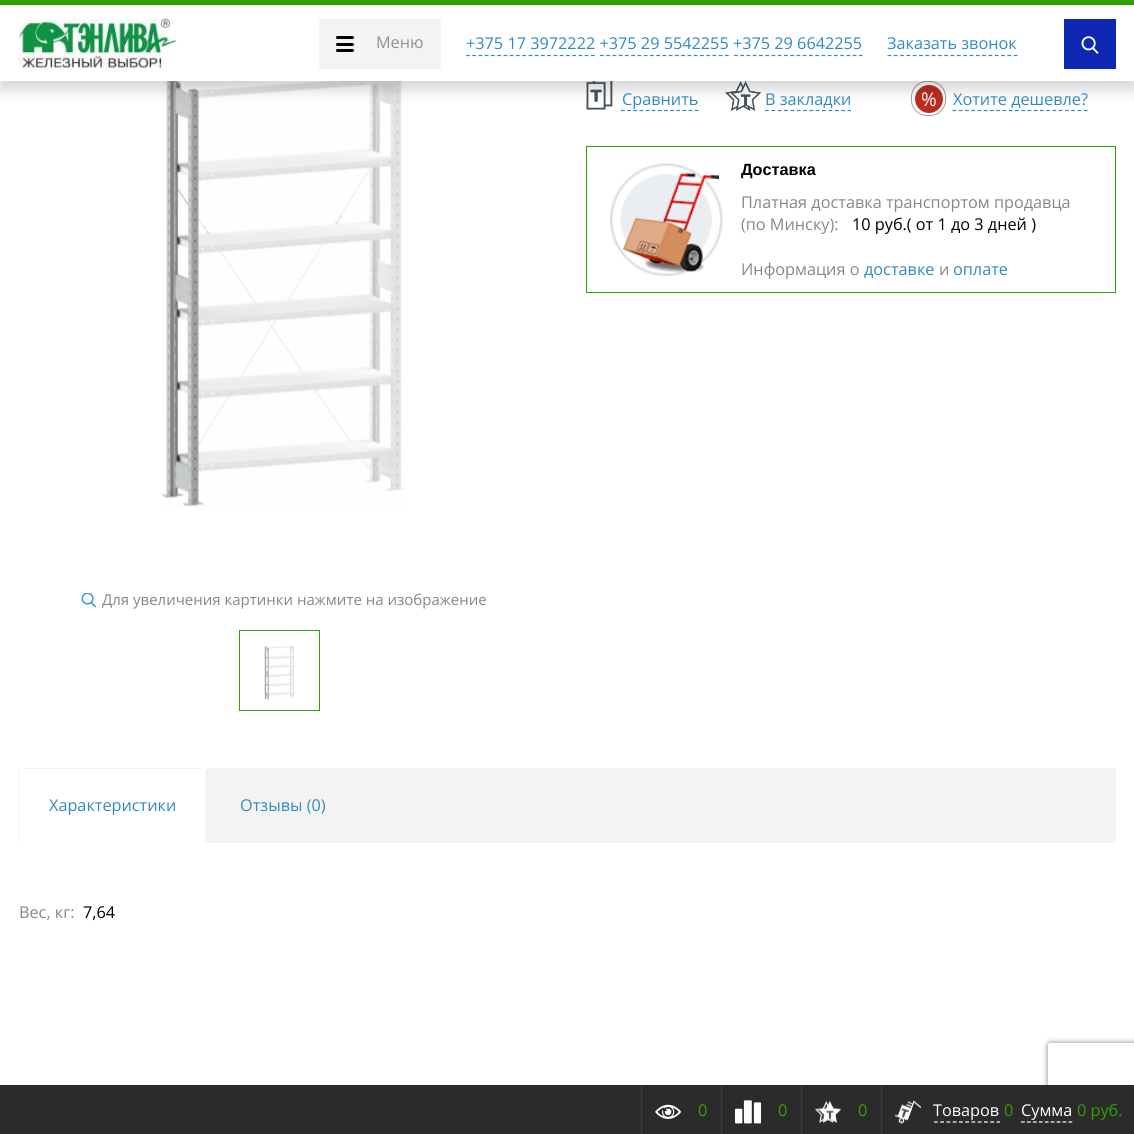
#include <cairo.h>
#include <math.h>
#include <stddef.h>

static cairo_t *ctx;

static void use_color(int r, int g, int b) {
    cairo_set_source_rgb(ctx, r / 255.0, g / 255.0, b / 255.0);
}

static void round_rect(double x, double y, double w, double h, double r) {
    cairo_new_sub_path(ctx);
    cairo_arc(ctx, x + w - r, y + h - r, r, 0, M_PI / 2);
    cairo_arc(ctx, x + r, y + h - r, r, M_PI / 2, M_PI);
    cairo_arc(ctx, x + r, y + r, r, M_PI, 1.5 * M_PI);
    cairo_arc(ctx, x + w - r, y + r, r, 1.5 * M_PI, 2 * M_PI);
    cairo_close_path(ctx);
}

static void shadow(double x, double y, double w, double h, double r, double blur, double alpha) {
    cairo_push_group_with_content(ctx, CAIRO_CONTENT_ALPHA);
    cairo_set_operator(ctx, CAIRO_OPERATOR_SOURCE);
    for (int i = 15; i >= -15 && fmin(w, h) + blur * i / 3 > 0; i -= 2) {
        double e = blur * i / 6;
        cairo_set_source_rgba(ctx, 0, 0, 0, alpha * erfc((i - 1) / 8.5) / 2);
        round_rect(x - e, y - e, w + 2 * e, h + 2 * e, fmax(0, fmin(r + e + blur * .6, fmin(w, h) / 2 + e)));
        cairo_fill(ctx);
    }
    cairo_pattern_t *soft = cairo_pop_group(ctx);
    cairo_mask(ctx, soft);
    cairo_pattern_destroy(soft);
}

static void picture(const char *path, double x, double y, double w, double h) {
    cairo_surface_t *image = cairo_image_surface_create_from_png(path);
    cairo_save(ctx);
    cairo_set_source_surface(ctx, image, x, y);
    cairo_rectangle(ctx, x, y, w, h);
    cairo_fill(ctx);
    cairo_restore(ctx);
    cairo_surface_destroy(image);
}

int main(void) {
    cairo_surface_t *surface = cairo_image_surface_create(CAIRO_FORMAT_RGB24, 1134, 1134);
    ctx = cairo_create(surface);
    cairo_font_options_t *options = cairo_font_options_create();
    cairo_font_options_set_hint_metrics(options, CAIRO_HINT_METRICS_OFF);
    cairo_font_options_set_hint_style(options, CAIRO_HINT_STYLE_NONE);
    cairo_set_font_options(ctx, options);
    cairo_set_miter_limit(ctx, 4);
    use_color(255, 255, 255);
    cairo_paint(ctx);
    use_color(46, 162, 1);
    cairo_rectangle(ctx, 0, 0, 1134, 5);
    cairo_fill(ctx);
    picture("img3.png", 586, 81, 27, 29);
    cairo_new_path(ctx);
    cairo_move_to(ctx, 621, 110.5);
    cairo_line_to(ctx, 699, 110.5);
    use_color(48, 138, 196);
    cairo_set_line_width(ctx, 1.2);
    cairo_set_dash(ctx, (double[]){3.75, 2.4}, 2, 0);
    cairo_stroke(ctx);
    picture("img4.png", 725, 81, 37, 30);
    cairo_new_path(ctx);
    cairo_move_to(ctx, 765, 110.5);
    cairo_line_to(ctx, 851, 110.5);
    cairo_set_dash(ctx, (double[]){3.75, 2.6}, 2, 0);
    cairo_stroke(ctx);
    round_rect(911.5, 81.5, 34, 34, 15.5);
    use_color(158, 158, 156);
    cairo_set_line_width(ctx, 1);
    cairo_set_dash(ctx, NULL, 0, 0);
    cairo_stroke(ctx);
    use_color(187, 45, 31);
    cairo_arc(ctx, 929, 99, 14, 0, 2 * M_PI);
    cairo_fill(ctx);
    cairo_new_path(ctx);
    cairo_move_to(ctx, 952.5, 110.5);
    cairo_line_to(ctx, 1087.5, 110.5);
    use_color(48, 138, 196);
    cairo_set_line_width(ctx, 1.2);
    cairo_set_dash(ctx, (double[]){3.75, 2.5}, 2, 0);
    cairo_stroke(ctx);
    picture("img6.png", 161, 81, 245, 426);
    use_color(0, 0, 0);
    shadow(0, 13, 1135, 76, 0, 7.5, 0.18);
    use_color(255, 255, 255);
    cairo_rectangle(ctx, 0, 5, 1134, 76);
    cairo_fill(ctx);
    picture("img1.png", 18, 18, 159, 50);
    use_color(243, 243, 243);
    cairo_rectangle(ctx, 319, 19, 122, 50);
    cairo_fill(ctx);
    use_color(0, 0, 0);
    round_rect(336, 36, 18, 3, 1.5);
    cairo_fill(ctx);
    round_rect(336, 43, 18, 3, 1.5);
    cairo_fill(ctx);
    round_rect(336, 49, 18, 3, 1.5);
    cairo_fill(ctx);
    cairo_select_font_face(ctx, "Open Sans", CAIRO_FONT_SLANT_NORMAL, CAIRO_FONT_WEIGHT_NORMAL);
    cairo_set_font_size(ctx, 16.25);
    use_color(145, 145, 143);
    cairo_move_to(ctx, 376, 48);
    cairo_show_text(ctx, "Меню");
    use_color(48, 138, 196);
    cairo_move_to(ctx, 466, 49);
    cairo_show_text(ctx, "+375 17 3972222 +375 29 5542255 +375 29 6642255");
    cairo_new_path(ctx);
    cairo_move_to(ctx, 466, 55.5);
    cairo_line_to(ctx, 595, 55.5);
    cairo_stroke(ctx);
    cairo_new_path(ctx);
    cairo_move_to(ctx, 600, 55.5);
    cairo_line_to(ctx, 729, 55.5);
    cairo_stroke(ctx);
    cairo_new_path(ctx);
    cairo_move_to(ctx, 734, 55.5);
    cairo_line_to(ctx, 862.5, 55.5);
    cairo_stroke(ctx);
    cairo_move_to(ctx, 887, 49);
    cairo_show_text(ctx, "Заказать звонок");
    cairo_new_path(ctx);
    cairo_move_to(ctx, 887.5, 55.5);
    cairo_line_to(ctx, 1017.5, 55.5);
    cairo_set_dash(ctx, (double[]){3.75, 2.56}, 2, 0);
    cairo_stroke(ctx);
    use_color(14, 40, 179);
    cairo_rectangle(ctx, 1064, 19, 52, 50);
    cairo_fill(ctx);
    picture("img2.png", 1081, 36, 18, 18);
    use_color(48, 138, 196);
    cairo_move_to(ctx, 622, 105);
    cairo_show_text(ctx, "Сравнить");
    cairo_move_to(ctx, 765, 105);
    cairo_show_text(ctx, "В закладки");
    cairo_set_font_size(ctx, 19);
    use_color(255, 255, 255);
    cairo_move_to(ctx, 921, 106);
    cairo_show_text(ctx, "%");
    cairo_set_font_size(ctx, 16.25);
    use_color(48, 138, 196);
    cairo_move_to(ctx, 953, 105);
    cairo_show_text(ctx, "Хотите дешевле?");
    cairo_rectangle(ctx, 586.5, 146.5, 529, 146);
    use_color(46, 162, 1);
    cairo_set_line_width(ctx, 1);
    cairo_set_dash(ctx, NULL, 0, 0);
    cairo_stroke(ctx);
    picture("img5.png", 610, 163, 113, 113);
    cairo_select_font_face(ctx, "Liberation Sans", CAIRO_FONT_SLANT_NORMAL, CAIRO_FONT_WEIGHT_BOLD);
    use_color(0, 0, 0);
    cairo_move_to(ctx, 741, 175);
    cairo_show_text(ctx, "Доставка");
    cairo_select_font_face(ctx, "Open Sans", CAIRO_FONT_SLANT_NORMAL, CAIRO_FONT_WEIGHT_NORMAL);
    use_color(135, 135, 135);
    cairo_move_to(ctx, 741, 208);
    cairo_show_text(ctx, "Платная доставка транспортом продавца");
    cairo_move_to(ctx, 741, 230);
    cairo_show_text(ctx, "(по Минску):");
    use_color(0, 0, 0);
    cairo_move_to(ctx, 852, 230);
    cairo_show_text(ctx, "10 руб.( от 1 до 3 дней )");
    use_color(135, 135, 135);
    cairo_move_to(ctx, 741, 275);
    cairo_show_text(ctx, "Информация о");
    use_color(48, 138, 196);
    cairo_move_to(ctx, 864, 275);
    cairo_show_text(ctx, "доставке");
    use_color(135, 135, 135);
    cairo_move_to(ctx, 939, 275);
    cairo_show_text(ctx, "и");
    use_color(48, 138, 196);
    cairo_move_to(ctx, 953, 275);
    cairo_show_text(ctx, "оплате");
    picture("img7.png", 81, 593, 15, 15);
    cairo_set_font_size(ctx, 15);
    use_color(135, 135, 135);
    cairo_move_to(ctx, 102, 605);
    cairo_show_text(ctx, "Для увеличения картинки нажмите на изображение");
    cairo_rectangle(ctx, 239.5, 630.5, 80, 80);
    use_color(46, 162, 1);
    cairo_stroke(ctx);
    picture("img8.png", 264, 644, 30, 56);
    use_color(243, 243, 243);
    cairo_rectangle(ctx, 206, 768, 910, 75);
    cairo_fill(ctx);
    cairo_rectangle(ctx, 19, 768, 187, 1);
    cairo_fill(ctx);
    cairo_rectangle(ctx, 205, 768, 1, 75);
    cairo_fill(ctx);
    cairo_rectangle(ctx, 19, 768, 1, 75);
    cairo_fill(ctx);
    use_color(255, 255, 255);
    cairo_rectangle(ctx, 20, 768, 3, 1);
    cairo_fill(ctx);
    cairo_rectangle(ctx, 203, 768, 3, 1);
    cairo_fill(ctx);
    cairo_set_font_size(ctx, 16.25);
    use_color(48, 138, 196);
    cairo_move_to(ctx, 49, 811);
    cairo_show_text(ctx, "Характеристики");
    cairo_move_to(ctx, 240, 811);
    cairo_show_text(ctx, "Отзывы (0)");
    use_color(135, 135, 135);
    cairo_move_to(ctx, 19, 918);
    cairo_show_text(ctx, "Вес, кг:");
    use_color(0, 0, 0);
    cairo_move_to(ctx, 83, 918);
    cairo_show_text(ctx, "7,64");
    cairo_save(ctx);
    cairo_set_fill_rule(ctx, CAIRO_FILL_RULE_EVEN_ODD);
    cairo_new_path(ctx);
    cairo_move_to(ctx, 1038, 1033);
    cairo_line_to(ctx, 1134, 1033);
    cairo_line_to(ctx, 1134, 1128);
    cairo_line_to(ctx, 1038, 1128);
    cairo_close_path(ctx);
    cairo_move_to(ctx, 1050.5, 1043);
    cairo_line_to(ctx, 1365.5, 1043);
    cairo_curve_to(ctx, 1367, 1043, 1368, 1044, 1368, 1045.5);
    cairo_line_to(ctx, 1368, 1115.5);
    cairo_curve_to(ctx, 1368, 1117, 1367, 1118, 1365.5, 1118);
    cairo_line_to(ctx, 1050.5, 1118);
    cairo_curve_to(ctx, 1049, 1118, 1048, 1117, 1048, 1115.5);
    cairo_line_to(ctx, 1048, 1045.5);
    cairo_curve_to(ctx, 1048, 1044, 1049, 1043, 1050.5, 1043);
    cairo_close_path(ctx);
    cairo_clip(ctx);
    use_color(128, 128, 128);
    shadow(1048, 1043, 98, 75, 2.5, 3, 1);
    cairo_restore(ctx);
    use_color(43, 43, 43);
    cairo_rectangle(ctx, 0, 1085, 1134, 49);
    cairo_fill(ctx);
    use_color(60, 60, 60);
    cairo_rectangle(ctx, 641, 1085, 1, 49);
    cairo_fill(ctx);
    picture("img9.png", 655, 1104, 26, 15);
    use_color(46, 162, 1);
    cairo_move_to(ctx, 698, 1116);
    cairo_show_text(ctx, "0");
    use_color(60, 60, 60);
    cairo_rectangle(ctx, 721, 1085, 1, 49);
    cairo_fill(ctx);
    picture("img10.png", 735, 1100, 26, 24);
    use_color(46, 162, 1);
    cairo_move_to(ctx, 778, 1116);
    cairo_show_text(ctx, "0");
    use_color(60, 60, 60);
    cairo_rectangle(ctx, 801, 1085, 1, 49);
    cairo_fill(ctx);
    picture("img11.png", 815, 1100, 26, 23);
    use_color(46, 162, 1);
    cairo_move_to(ctx, 858, 1116);
    cairo_show_text(ctx, "0");
    use_color(60, 60, 60);
    cairo_rectangle(ctx, 881, 1085, 1, 49);
    cairo_fill(ctx);
    picture("img12.png", 895, 1100, 26, 24);
    use_color(255, 255, 255);
    cairo_move_to(ctx, 933, 1116);
    cairo_show_text(ctx, "Товаров");
    cairo_new_path(ctx);
    cairo_move_to(ctx, 934, 1122);
    cairo_line_to(ctx, 1000, 1122);
    cairo_set_line_width(ctx, 1.2);
    cairo_set_dash(ctx, (double[]){3.75, 2.5}, 2, 0);
    cairo_stroke(ctx);
    use_color(46, 162, 1);
    cairo_move_to(ctx, 1004, 1116);
    cairo_show_text(ctx, "0");
    use_color(255, 255, 255);
    cairo_move_to(ctx, 1021, 1116);
    cairo_show_text(ctx, "Сумма");
    cairo_new_path(ctx);
    cairo_move_to(ctx, 1021, 1122);
    cairo_line_to(ctx, 1072.5, 1122);
    cairo_set_dash(ctx, (double[]){3.75, 2.19}, 2, 0);
    cairo_stroke(ctx);
    use_color(46, 162, 1);
    cairo_move_to(ctx, 1077, 1116);
    cairo_show_text(ctx, "0 руб.");
    cairo_surface_write_to_png(surface, "result.png");
    cairo_font_options_destroy(options);
    cairo_destroy(ctx);
    cairo_surface_destroy(surface);
    return 0;
}
